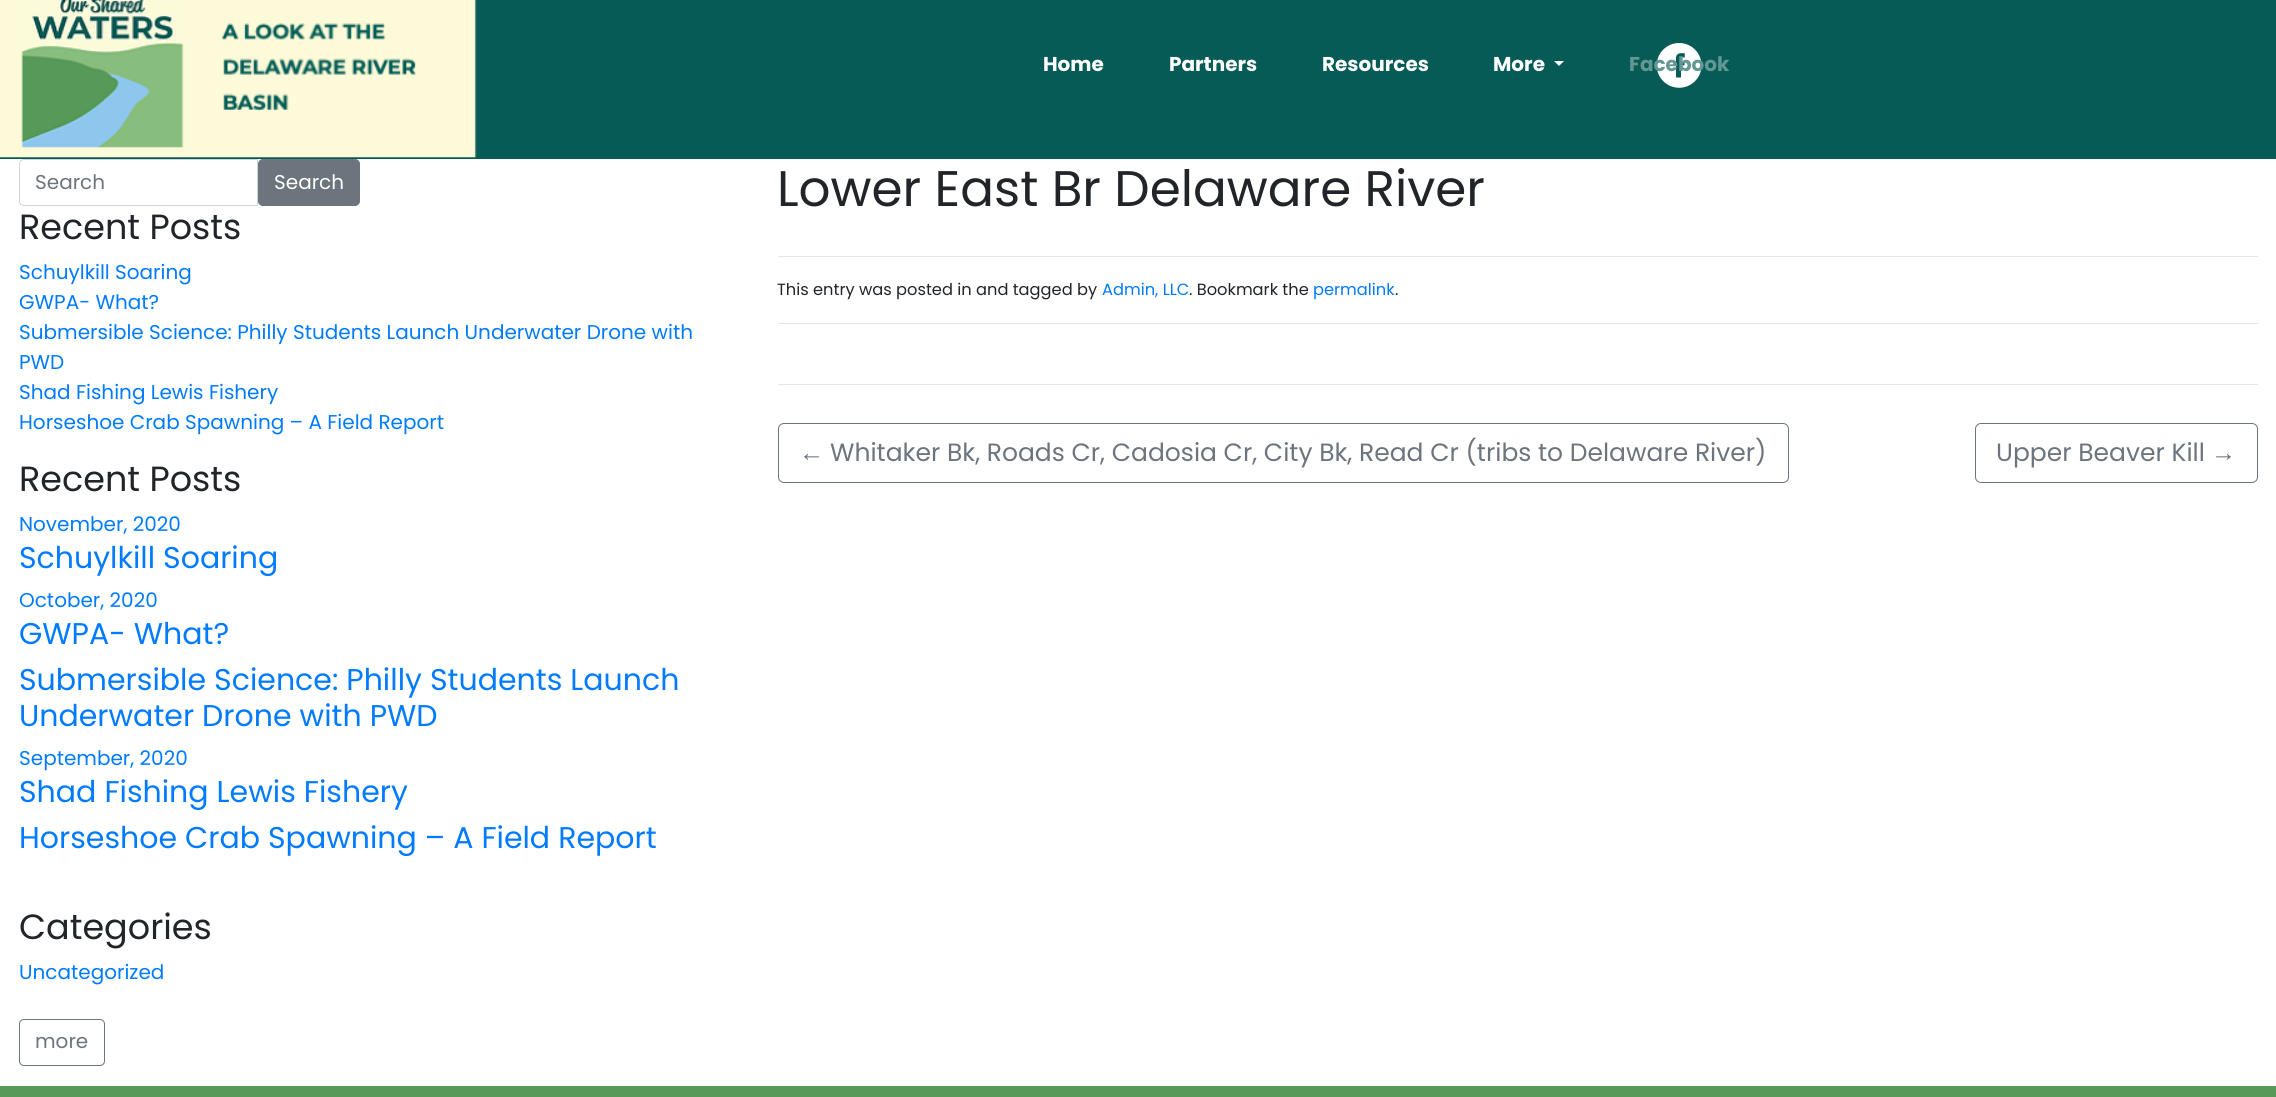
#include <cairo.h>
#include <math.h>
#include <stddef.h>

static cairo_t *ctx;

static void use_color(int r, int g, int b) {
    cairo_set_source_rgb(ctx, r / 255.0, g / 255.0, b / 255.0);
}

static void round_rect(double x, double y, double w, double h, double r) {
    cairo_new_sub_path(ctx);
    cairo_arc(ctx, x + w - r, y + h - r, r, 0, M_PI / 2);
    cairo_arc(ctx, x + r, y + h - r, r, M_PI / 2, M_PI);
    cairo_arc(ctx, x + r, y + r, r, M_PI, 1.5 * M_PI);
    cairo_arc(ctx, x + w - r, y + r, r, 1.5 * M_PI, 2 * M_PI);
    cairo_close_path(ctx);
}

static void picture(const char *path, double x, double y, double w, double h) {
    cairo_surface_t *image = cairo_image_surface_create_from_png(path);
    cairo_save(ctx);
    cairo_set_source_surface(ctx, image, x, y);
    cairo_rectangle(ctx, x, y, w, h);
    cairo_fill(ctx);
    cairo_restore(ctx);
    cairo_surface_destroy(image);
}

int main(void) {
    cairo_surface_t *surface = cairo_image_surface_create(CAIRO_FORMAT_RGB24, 2276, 1097);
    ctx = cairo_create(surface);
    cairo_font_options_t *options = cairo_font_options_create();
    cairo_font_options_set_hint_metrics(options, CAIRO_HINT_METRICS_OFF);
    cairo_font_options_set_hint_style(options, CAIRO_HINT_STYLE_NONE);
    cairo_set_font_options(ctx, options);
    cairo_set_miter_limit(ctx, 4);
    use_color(255, 255, 255);
    cairo_paint(ctx);
    use_color(7, 91, 86);
    cairo_rectangle(ctx, 0, 0, 2276, 159);
    cairo_fill(ctx);
    picture("img1.png", 0, 0, 477, 158);
    cairo_select_font_face(ctx, "Poppins", CAIRO_FONT_SLANT_NORMAL, CAIRO_FONT_WEIGHT_BOLD);
    cairo_set_font_size(ctx, 20);
    use_color(255, 255, 255);
    cairo_move_to(ctx, 1043, 71);
    cairo_show_text(ctx, "Home");
    cairo_move_to(ctx, 1169, 71);
    cairo_show_text(ctx, "Partners");
    cairo_move_to(ctx, 1322, 71);
    cairo_show_text(ctx, "Resources");
    cairo_move_to(ctx, 1493, 71);
    cairo_show_text(ctx, "More");
    cairo_new_path(ctx);
    cairo_move_to(ctx, 1554, 61);
    cairo_line_to(ctx, 1564, 61);
    cairo_line_to(ctx, 1559, 66);
    cairo_close_path(ctx);
    cairo_fill(ctx);
    picture("img2.png", 1656, 43, 46, 45);
    use_color(98, 151, 148);
    cairo_move_to(ctx, 1629, 71);
    cairo_show_text(ctx, "Facebook");
    cairo_new_path(ctx);
    cairo_move_to(ctx, 24, 159.5);
    cairo_line_to(ctx, 257.5, 159.5);
    cairo_line_to(ctx, 257.5, 205.5);
    cairo_line_to(ctx, 24, 205.5);
    cairo_curve_to(ctx, 21.5, 205.5, 19.5, 203.5, 19.5, 201);
    cairo_line_to(ctx, 19.5, 164);
    cairo_curve_to(ctx, 19.5, 161.5, 21.5, 159.5, 24, 159.5);
    cairo_close_path(ctx);
    use_color(206, 212, 218);
    cairo_set_line_width(ctx, 1);
    cairo_stroke(ctx);
    cairo_select_font_face(ctx, "Poppins", CAIRO_FONT_SLANT_NORMAL, CAIRO_FONT_WEIGHT_NORMAL);
    use_color(108, 117, 125);
    cairo_move_to(ctx, 35, 189);
    cairo_show_text(ctx, "Search");
    round_rect(258.5, 159.5, 101, 46, 4.5);
    cairo_fill_preserve(ctx);
    cairo_stroke(ctx);
    use_color(255, 255, 255);
    cairo_move_to(ctx, 274, 189);
    cairo_show_text(ctx, "Search");
    cairo_set_font_size(ctx, 35);
    use_color(33, 37, 41);
    cairo_move_to(ctx, 19, 239);
    cairo_show_text(ctx, "Recent Posts");
    cairo_set_font_size(ctx, 20);
    use_color(0, 123, 255);
    cairo_move_to(ctx, 19, 279);
    cairo_show_text(ctx, "Schuylkill Soaring");
    cairo_move_to(ctx, 19, 309);
    cairo_show_text(ctx, "GWPA- What?");
    cairo_move_to(ctx, 19, 339);
    cairo_show_text(ctx, "Submersible Science: Philly Students Launch Underwater Drone with");
    cairo_move_to(ctx, 19, 369);
    cairo_show_text(ctx, "PWD");
    cairo_move_to(ctx, 19, 399);
    cairo_show_text(ctx, "Shad Fishing Lewis Fishery");
    cairo_move_to(ctx, 19, 429);
    cairo_show_text(ctx, "Horseshoe Crab Spawning – A Field Report");
    cairo_set_font_size(ctx, 35);
    use_color(33, 37, 41);
    cairo_move_to(ctx, 19, 491);
    cairo_show_text(ctx, "Recent Posts");
    cairo_set_font_size(ctx, 20);
    use_color(0, 123, 255);
    cairo_move_to(ctx, 19, 531);
    cairo_show_text(ctx, "November, 2020");
    cairo_set_font_size(ctx, 30);
    cairo_move_to(ctx, 19, 568);
    cairo_show_text(ctx, "Schuylkill Soaring");
    cairo_set_font_size(ctx, 20);
    cairo_move_to(ctx, 19, 607);
    cairo_show_text(ctx, "October, 2020");
    cairo_set_font_size(ctx, 30);
    cairo_move_to(ctx, 19, 644);
    cairo_show_text(ctx, "GWPA- What?");
    cairo_move_to(ctx, 19, 690);
    cairo_show_text(ctx, "Submersible Science: Philly Students Launch");
    cairo_move_to(ctx, 19, 726);
    cairo_show_text(ctx, "Underwater Drone with PWD");
    cairo_set_font_size(ctx, 20);
    cairo_move_to(ctx, 19, 765);
    cairo_show_text(ctx, "September, 2020");
    cairo_set_font_size(ctx, 30);
    cairo_move_to(ctx, 19, 802);
    cairo_show_text(ctx, "Shad Fishing Lewis Fishery");
    cairo_move_to(ctx, 19, 848);
    cairo_show_text(ctx, "Horseshoe Crab Spawning – A Field Report");
    cairo_set_font_size(ctx, 35);
    use_color(33, 37, 41);
    cairo_move_to(ctx, 19, 939);
    cairo_show_text(ctx, "Categories");
    cairo_set_font_size(ctx, 20);
    use_color(0, 123, 255);
    cairo_move_to(ctx, 19, 979);
    cairo_show_text(ctx, "Uncategorized");
    round_rect(19.5, 1019.5, 85, 46, 4.5);
    use_color(108, 117, 125);
    cairo_stroke(ctx);
    cairo_move_to(ctx, 35, 1048);
    cairo_show_text(ctx, "more");
    cairo_set_font_size(ctx, 50);
    use_color(33, 37, 41);
    cairo_move_to(ctx, 777, 206);
    cairo_show_text(ctx, "Lower East Br Delaware River");
    use_color(230, 230, 230);
    cairo_rectangle(ctx, 778, 256, 1480, 1);
    cairo_fill(ctx);
    cairo_set_font_size(ctx, 16.25);
    use_color(33, 37, 41);
    cairo_move_to(ctx, 777, 295);
    cairo_show_text(ctx, "This entry was posted in and tagged by");
    use_color(0, 123, 255);
    cairo_move_to(ctx, 1102, 295);
    cairo_show_text(ctx, "Admin, LLC");
    use_color(33, 37, 41);
    cairo_move_to(ctx, 1189, 295);
    cairo_show_text(ctx, ". Bookmark the");
    use_color(0, 123, 255);
    cairo_move_to(ctx, 1313, 295);
    cairo_show_text(ctx, "permalink");
    use_color(33, 37, 41);
    cairo_move_to(ctx, 1395, 295);
    cairo_show_text(ctx, ".");
    use_color(230, 230, 230);
    cairo_rectangle(ctx, 778, 323, 1480, 1);
    cairo_fill(ctx);
    cairo_rectangle(ctx, 778, 384, 1480, 1);
    cairo_fill(ctx);
    round_rect(778.5, 423.5, 1010, 59, 5.5);
    use_color(108, 117, 125);
    cairo_stroke(ctx);
    cairo_select_font_face(ctx, "Liberation Sans", CAIRO_FONT_SLANT_NORMAL, CAIRO_FONT_WEIGHT_NORMAL);
    cairo_set_font_size(ctx, 25);
    cairo_move_to(ctx, 799, 461);
    cairo_show_text(ctx, "←");
    cairo_select_font_face(ctx, "Poppins", CAIRO_FONT_SLANT_NORMAL, CAIRO_FONT_WEIGHT_NORMAL);
    cairo_move_to(ctx, 830, 461);
    cairo_show_text(ctx, "Whitaker Bk, Roads Cr, Cadosia Cr, City Bk, Read Cr (tribs to Delaware River)");
    round_rect(1975.5, 423.5, 282, 59, 5.5);
    cairo_stroke(ctx);
    cairo_move_to(ctx, 1996, 461);
    cairo_show_text(ctx, "Upper Beaver Kill");
    cairo_select_font_face(ctx, "Liberation Sans", CAIRO_FONT_SLANT_NORMAL, CAIRO_FONT_WEIGHT_NORMAL);
    cairo_move_to(ctx, 2211, 461);
    cairo_show_text(ctx, "→");
    use_color(88, 153, 89);
    cairo_rectangle(ctx, 0, 1086, 2276, 11);
    cairo_fill(ctx);
    cairo_surface_write_to_png(surface, "result.png");
    cairo_font_options_destroy(options);
    cairo_destroy(ctx);
    cairo_surface_destroy(surface);
    return 0;
}
